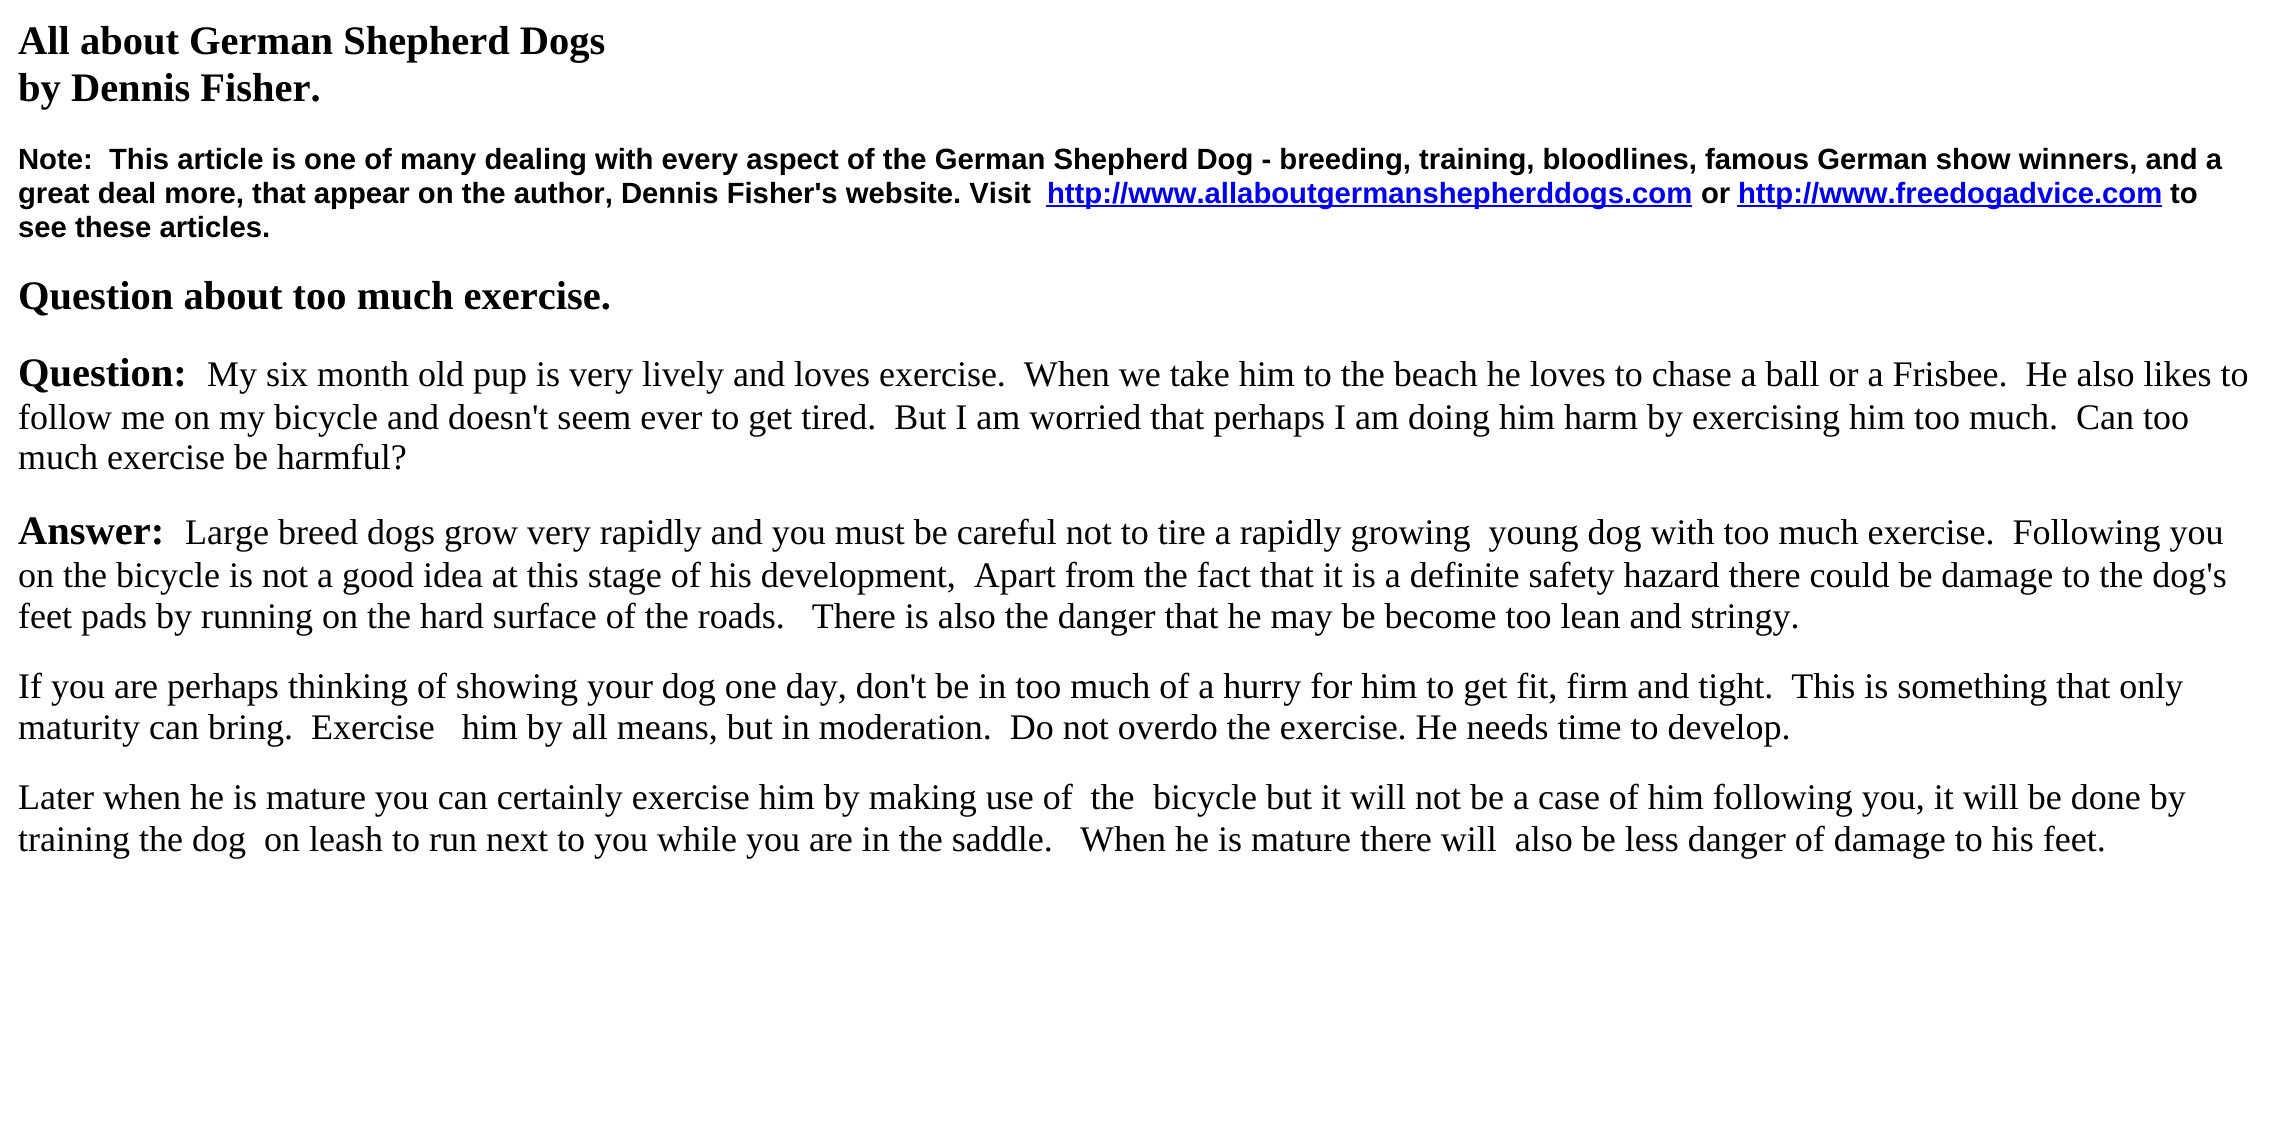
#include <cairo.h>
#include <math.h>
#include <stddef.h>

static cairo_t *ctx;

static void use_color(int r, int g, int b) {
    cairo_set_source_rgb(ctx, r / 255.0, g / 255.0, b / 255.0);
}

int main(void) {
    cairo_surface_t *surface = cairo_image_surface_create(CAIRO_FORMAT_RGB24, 2272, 1138);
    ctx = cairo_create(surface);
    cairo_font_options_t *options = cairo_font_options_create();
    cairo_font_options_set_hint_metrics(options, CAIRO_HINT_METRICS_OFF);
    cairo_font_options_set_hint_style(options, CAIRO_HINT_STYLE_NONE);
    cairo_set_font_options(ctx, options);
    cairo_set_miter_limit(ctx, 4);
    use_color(255, 255, 255);
    cairo_paint(ctx);
    cairo_select_font_face(ctx, "Liberation Serif", CAIRO_FONT_SLANT_NORMAL, CAIRO_FONT_WEIGHT_BOLD);
    cairo_set_font_size(ctx, 40.5);
    use_color(0, 0, 0);
    cairo_move_to(ctx, 18, 54);
    cairo_show_text(ctx, "All about German Shepherd Dogs");
    cairo_move_to(ctx, 18, 101);
    cairo_show_text(ctx, "by Dennis Fisher.");
    cairo_select_font_face(ctx, "Liberation Sans", CAIRO_FONT_SLANT_NORMAL, CAIRO_FONT_WEIGHT_BOLD);
    cairo_set_font_size(ctx, 29.25);
    cairo_move_to(ctx, 18, 169);
    cairo_show_text(ctx, "Note:  This article is one of many dealing with every aspect of the German Shepherd Dog - breeding, training, bloodlines, famous German show winners, and a");
    cairo_move_to(ctx, 18, 203);
    cairo_show_text(ctx, "great deal more, that appear on the author, Dennis Fisher's website. Visit");
    use_color(0, 0, 238);
    cairo_rectangle(ctx, 1046, 205, 646, 2);
    cairo_fill(ctx);
    cairo_move_to(ctx, 1047, 203);
    cairo_show_text(ctx, "http://www.allaboutgermanshepherddogs.com");
    use_color(0, 0, 0);
    cairo_move_to(ctx, 1701, 203);
    cairo_show_text(ctx, "or");
    use_color(0, 0, 238);
    cairo_rectangle(ctx, 1737, 205, 425, 2);
    cairo_fill(ctx);
    cairo_move_to(ctx, 1738, 203);
    cairo_show_text(ctx, "http://www.freedogadvice.com");
    use_color(0, 0, 0);
    cairo_move_to(ctx, 2170, 203);
    cairo_show_text(ctx, "to");
    cairo_move_to(ctx, 18, 237);
    cairo_show_text(ctx, "see these articles.");
    cairo_select_font_face(ctx, "Liberation Serif", CAIRO_FONT_SLANT_NORMAL, CAIRO_FONT_WEIGHT_BOLD);
    cairo_set_font_size(ctx, 40.5);
    cairo_move_to(ctx, 18, 309);
    cairo_show_text(ctx, "Question about too much exercise.");
    cairo_move_to(ctx, 18, 386);
    cairo_show_text(ctx, "Question:");
    cairo_select_font_face(ctx, "Liberation Serif", CAIRO_FONT_SLANT_NORMAL, CAIRO_FONT_WEIGHT_NORMAL);
    cairo_set_font_size(ctx, 36);
    cairo_move_to(ctx, 207, 386);
    cairo_show_text(ctx, "My six month old pup is very lively and loves exercise.  When we take him to the beach he loves to chase a ball or a Frisbee.  He also likes to");
    cairo_move_to(ctx, 18, 429);
    cairo_show_text(ctx, "follow me on my bicycle and doesn't seem ever to get tired.  But I am worried that perhaps I am doing him harm by exercising him too much.  Can too");
    cairo_move_to(ctx, 18, 469);
    cairo_show_text(ctx, "much exercise be harmful?");
    cairo_select_font_face(ctx, "Liberation Serif", CAIRO_FONT_SLANT_NORMAL, CAIRO_FONT_WEIGHT_BOLD);
    cairo_set_font_size(ctx, 40.5);
    cairo_move_to(ctx, 18, 544);
    cairo_show_text(ctx, "Answer:");
    cairo_select_font_face(ctx, "Liberation Serif", CAIRO_FONT_SLANT_NORMAL, CAIRO_FONT_WEIGHT_NORMAL);
    cairo_set_font_size(ctx, 36);
    cairo_move_to(ctx, 185, 544);
    cairo_show_text(ctx, "Large breed dogs grow very rapidly and you must be careful not to tire a rapidly growing  young dog with too much exercise.  Following you");
    cairo_move_to(ctx, 18, 587);
    cairo_show_text(ctx, "on the bicycle is not a good idea at this stage of his development,  Apart from the fact that it is a definite safety hazard there could be damage to the dog's");
    cairo_move_to(ctx, 18, 628);
    cairo_show_text(ctx, "feet pads by running on the hard surface of the roads.   There is also the danger that he may be become too lean and stringy.");
    cairo_move_to(ctx, 18, 698);
    cairo_show_text(ctx, "If you are perhaps thinking of showing your dog one day, don't be in too much of a hurry for him to get fit, firm and tight.  This is something that only");
    cairo_move_to(ctx, 18, 739);
    cairo_show_text(ctx, "maturity can bring.  Exercise   him by all means, but in moderation.  Do not overdo the exercise. He needs time to develop.");
    cairo_move_to(ctx, 18, 809);
    cairo_show_text(ctx, "Later when he is mature you can certainly exercise him by making use of  the");
    cairo_move_to(ctx, 1153, 809);
    cairo_show_text(ctx, "bicycle but it will not be a case of him following you, it will be done by");
    cairo_move_to(ctx, 18, 851);
    cairo_show_text(ctx, "training the dog  on leash to run next to you while you are in the saddle.");
    cairo_move_to(ctx, 1080, 851);
    cairo_show_text(ctx, "When he is mature there will  also be less danger of damage to his feet.");
    cairo_surface_write_to_png(surface, "result.png");
    cairo_font_options_destroy(options);
    cairo_destroy(ctx);
    cairo_surface_destroy(surface);
    return 0;
}
